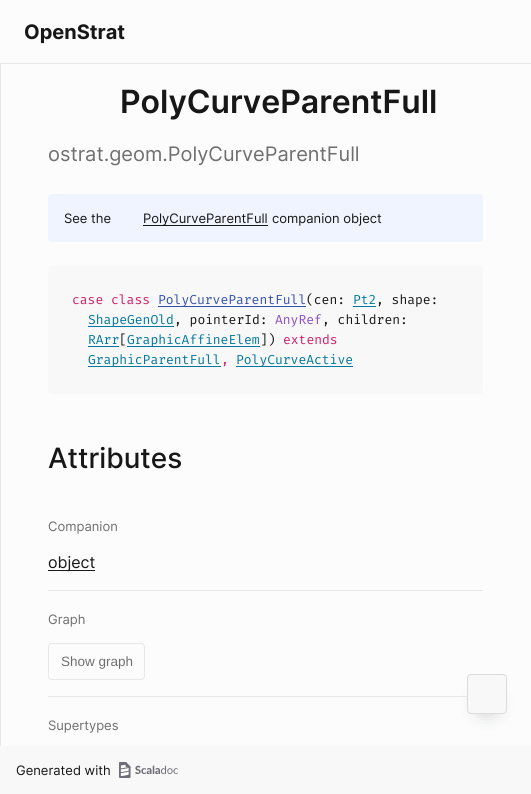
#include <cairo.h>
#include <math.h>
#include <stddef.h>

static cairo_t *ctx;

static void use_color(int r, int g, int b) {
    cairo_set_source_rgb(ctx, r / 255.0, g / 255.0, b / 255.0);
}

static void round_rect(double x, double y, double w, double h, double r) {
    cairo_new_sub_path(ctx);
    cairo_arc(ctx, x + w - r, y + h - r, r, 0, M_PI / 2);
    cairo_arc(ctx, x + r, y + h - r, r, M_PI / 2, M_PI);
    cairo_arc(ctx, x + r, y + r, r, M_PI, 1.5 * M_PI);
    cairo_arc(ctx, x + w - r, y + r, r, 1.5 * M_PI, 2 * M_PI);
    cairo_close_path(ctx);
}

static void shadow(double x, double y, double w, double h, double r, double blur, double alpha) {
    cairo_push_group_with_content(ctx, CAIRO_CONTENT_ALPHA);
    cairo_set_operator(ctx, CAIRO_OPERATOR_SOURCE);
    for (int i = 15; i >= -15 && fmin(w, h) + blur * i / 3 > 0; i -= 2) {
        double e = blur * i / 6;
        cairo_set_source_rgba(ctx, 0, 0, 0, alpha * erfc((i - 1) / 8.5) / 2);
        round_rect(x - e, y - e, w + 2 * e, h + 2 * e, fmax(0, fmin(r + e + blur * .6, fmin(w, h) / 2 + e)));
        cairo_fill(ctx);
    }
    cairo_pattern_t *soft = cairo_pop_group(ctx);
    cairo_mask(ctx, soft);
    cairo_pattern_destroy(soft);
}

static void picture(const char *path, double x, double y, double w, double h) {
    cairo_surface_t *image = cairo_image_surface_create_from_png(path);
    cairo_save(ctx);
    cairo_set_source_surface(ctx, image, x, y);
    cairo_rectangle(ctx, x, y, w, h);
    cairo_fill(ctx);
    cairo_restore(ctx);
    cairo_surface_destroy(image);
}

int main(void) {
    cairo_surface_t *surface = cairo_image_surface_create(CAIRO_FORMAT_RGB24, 531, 794);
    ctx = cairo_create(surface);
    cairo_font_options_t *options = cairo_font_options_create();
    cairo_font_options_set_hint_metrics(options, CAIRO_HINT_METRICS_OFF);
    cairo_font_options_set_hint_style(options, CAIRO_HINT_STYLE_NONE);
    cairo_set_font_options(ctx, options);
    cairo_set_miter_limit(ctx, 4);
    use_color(252, 252, 252);
    cairo_paint(ctx);
    use_color(232, 232, 232);
    cairo_rectangle(ctx, 0, 63, 531, 1);
    cairo_fill(ctx);
    cairo_select_font_face(ctx, "Inter", CAIRO_FONT_SLANT_NORMAL, CAIRO_FONT_WEIGHT_BOLD);
    cairo_set_font_size(ctx, 20);
    use_color(23, 23, 23);
    cairo_move_to(ctx, 24, 39);
    cairo_show_text(ctx, "OpenStrat");
    use_color(232, 232, 232);
    cairo_rectangle(ctx, 0, 64, 1, 683);
    cairo_fill(ctx);
    cairo_select_font_face(ctx, "Inter SemiBold", CAIRO_FONT_SLANT_NORMAL, CAIRO_FONT_WEIGHT_NORMAL);
    cairo_set_font_size(ctx, 32);
    use_color(23, 23, 23);
    cairo_move_to(ctx, 120, 113);
    cairo_show_text(ctx, "PolyCurveParentFull");
    cairo_select_font_face(ctx, "Inter", CAIRO_FONT_SLANT_NORMAL, CAIRO_FONT_WEIGHT_NORMAL);
    cairo_set_font_size(ctx, 20);
    use_color(111, 111, 111);
    cairo_move_to(ctx, 48, 161);
    cairo_show_text(ctx, "ostrat.geom.PolyCurveParentFull");
    use_color(240, 244, 255);
    round_rect(48, 194, 435, 48, 4);
    cairo_fill(ctx);
    cairo_set_font_size(ctx, 13);
    use_color(23, 23, 23);
    cairo_move_to(ctx, 64, 223);
    cairo_show_text(ctx, "See the");
    cairo_rectangle(ctx, 143, 225, 125, 1);
    cairo_fill(ctx);
    cairo_move_to(ctx, 143, 223);
    cairo_show_text(ctx, "PolyCurveParentFull");
    cairo_move_to(ctx, 272, 223);
    cairo_show_text(ctx, "companion object");
    use_color(248, 248, 248);
    round_rect(48, 266, 435, 128, 4);
    cairo_fill(ctx);
    cairo_select_font_face(ctx, "Fira Code", CAIRO_FONT_SLANT_NORMAL, CAIRO_FONT_WEIGHT_NORMAL);
    use_color(211, 30, 102);
    cairo_move_to(ctx, 72, 304);
    cairo_show_text(ctx, "case class");
    use_color(52, 81, 178);
    cairo_rectangle(ctx, 158, 306, 148, 1);
    cairo_fill(ctx);
    cairo_move_to(ctx, 158, 304);
    cairo_show_text(ctx, "PolyCurveParentFull");
    use_color(23, 23, 23);
    cairo_move_to(ctx, 306, 304);
    cairo_show_text(ctx, "(cen:");
    use_color(0, 120, 161);
    cairo_move_to(ctx, 353, 304);
    cairo_show_text(ctx, "Pt2");
    cairo_rectangle(ctx, 353, 306, 23, 1);
    cairo_fill(ctx);
    use_color(23, 23, 23);
    cairo_move_to(ctx, 376, 304);
    cairo_show_text(ctx, ", shape:");
    use_color(0, 120, 161);
    cairo_rectangle(ctx, 88, 326, 86, 1);
    cairo_fill(ctx);
    cairo_move_to(ctx, 88, 324);
    cairo_show_text(ctx, "ShapeGenOld");
    use_color(23, 23, 23);
    cairo_move_to(ctx, 174, 324);
    cairo_show_text(ctx, ", pointerId:");
    use_color(142, 78, 198);
    cairo_move_to(ctx, 275, 324);
    cairo_show_text(ctx, "AnyRef");
    use_color(23, 23, 23);
    cairo_move_to(ctx, 322, 324);
    cairo_show_text(ctx, ", children:");
    use_color(0, 120, 161);
    cairo_move_to(ctx, 88, 344);
    cairo_show_text(ctx, "RArr");
    cairo_rectangle(ctx, 88, 346, 31, 1);
    cairo_fill(ctx);
    use_color(23, 23, 23);
    cairo_move_to(ctx, 119, 344);
    cairo_show_text(ctx, "[");
    use_color(0, 120, 161);
    cairo_rectangle(ctx, 127, 346, 133, 1);
    cairo_fill(ctx);
    cairo_move_to(ctx, 127, 344);
    cairo_show_text(ctx, "GraphicAffineElem");
    use_color(23, 23, 23);
    cairo_move_to(ctx, 260, 344);
    cairo_show_text(ctx, "])");
    use_color(211, 30, 102);
    cairo_move_to(ctx, 283, 344);
    cairo_show_text(ctx, "extends");
    use_color(0, 120, 161);
    cairo_rectangle(ctx, 88, 366, 133, 1);
    cairo_fill(ctx);
    cairo_move_to(ctx, 88, 364);
    cairo_show_text(ctx, "GraphicParentFull");
    use_color(211, 30, 102);
    cairo_move_to(ctx, 221, 364);
    cairo_show_text(ctx, ",");
    use_color(0, 120, 161);
    cairo_rectangle(ctx, 236, 366, 117, 1);
    cairo_fill(ctx);
    cairo_move_to(ctx, 236, 364);
    cairo_show_text(ctx, "PolyCurveActive");
    cairo_select_font_face(ctx, "Inter Medium", CAIRO_FONT_SLANT_NORMAL, CAIRO_FONT_WEIGHT_NORMAL);
    cairo_set_font_size(ctx, 28);
    use_color(23, 23, 23);
    cairo_move_to(ctx, 48, 468);
    cairo_show_text(ctx, "Attributes");
    cairo_select_font_face(ctx, "Inter", CAIRO_FONT_SLANT_NORMAL, CAIRO_FONT_WEIGHT_NORMAL);
    cairo_set_font_size(ctx, 13);
    use_color(111, 111, 111);
    cairo_move_to(ctx, 48, 531);
    cairo_show_text(ctx, "Companion");
    use_color(23, 23, 23);
    cairo_rectangle(ctx, 48, 570, 47, 1);
    cairo_fill(ctx);
    cairo_set_font_size(ctx, 16);
    cairo_move_to(ctx, 48, 568);
    cairo_show_text(ctx, "object");
    use_color(232, 232, 232);
    cairo_rectangle(ctx, 48, 590, 435, 1);
    cairo_fill(ctx);
    cairo_set_font_size(ctx, 13);
    use_color(111, 111, 111);
    cairo_move_to(ctx, 48, 624);
    cairo_show_text(ctx, "Graph");
    round_rect(48.5, 643.5, 96, 36, 3.5);
    use_color(232, 232, 232);
    cairo_set_line_width(ctx, 1);
    cairo_stroke(ctx);
    cairo_select_font_face(ctx, "Liberation Sans", CAIRO_FONT_SLANT_NORMAL, CAIRO_FONT_WEIGHT_NORMAL);
    cairo_set_font_size(ctx, 13.5);
    use_color(111, 111, 111);
    cairo_move_to(ctx, 61, 666);
    cairo_show_text(ctx, "Show graph");
    use_color(232, 232, 232);
    cairo_rectangle(ctx, 48, 696, 419, 1);
    cairo_fill(ctx);
    cairo_select_font_face(ctx, "Inter", CAIRO_FONT_SLANT_NORMAL, CAIRO_FONT_WEIGHT_NORMAL);
    cairo_set_font_size(ctx, 13);
    use_color(111, 111, 111);
    cairo_move_to(ctx, 48, 730);
    cairo_show_text(ctx, "Supertypes");
    use_color(14, 18, 22);
    shadow(482, 699, 10, 10, 0, 10, 0.35);
    use_color(248, 248, 248);
    round_rect(467.5, 674.5, 39, 39, 3.5);
    cairo_fill_preserve(ctx);
    use_color(219, 219, 219);
    cairo_stroke(ctx);
    use_color(248, 248, 248);
    cairo_rectangle(ctx, 0, 746, 531, 48);
    cairo_fill(ctx);
    use_color(23, 23, 23);
    cairo_move_to(ctx, 16, 775);
    cairo_show_text(ctx, "Generated with");
    picture("img1.png", 119, 762, 59, 16);
    cairo_surface_write_to_png(surface, "result.png");
    cairo_font_options_destroy(options);
    cairo_destroy(ctx);
    cairo_surface_destroy(surface);
    return 0;
}
